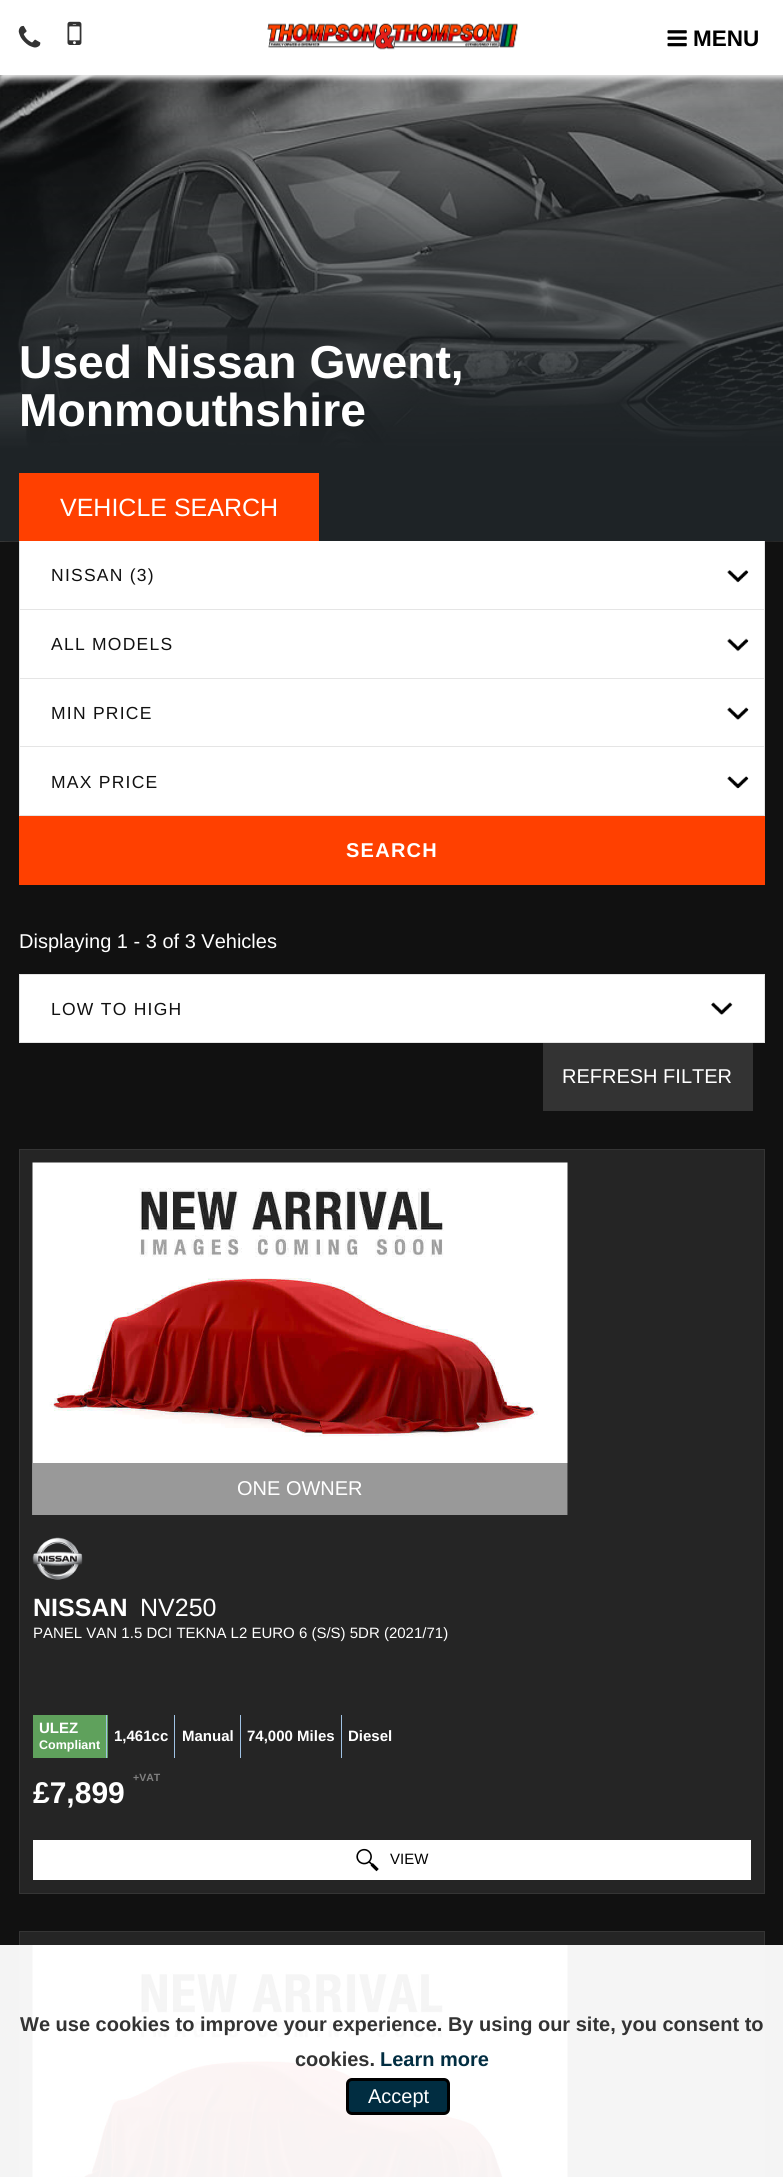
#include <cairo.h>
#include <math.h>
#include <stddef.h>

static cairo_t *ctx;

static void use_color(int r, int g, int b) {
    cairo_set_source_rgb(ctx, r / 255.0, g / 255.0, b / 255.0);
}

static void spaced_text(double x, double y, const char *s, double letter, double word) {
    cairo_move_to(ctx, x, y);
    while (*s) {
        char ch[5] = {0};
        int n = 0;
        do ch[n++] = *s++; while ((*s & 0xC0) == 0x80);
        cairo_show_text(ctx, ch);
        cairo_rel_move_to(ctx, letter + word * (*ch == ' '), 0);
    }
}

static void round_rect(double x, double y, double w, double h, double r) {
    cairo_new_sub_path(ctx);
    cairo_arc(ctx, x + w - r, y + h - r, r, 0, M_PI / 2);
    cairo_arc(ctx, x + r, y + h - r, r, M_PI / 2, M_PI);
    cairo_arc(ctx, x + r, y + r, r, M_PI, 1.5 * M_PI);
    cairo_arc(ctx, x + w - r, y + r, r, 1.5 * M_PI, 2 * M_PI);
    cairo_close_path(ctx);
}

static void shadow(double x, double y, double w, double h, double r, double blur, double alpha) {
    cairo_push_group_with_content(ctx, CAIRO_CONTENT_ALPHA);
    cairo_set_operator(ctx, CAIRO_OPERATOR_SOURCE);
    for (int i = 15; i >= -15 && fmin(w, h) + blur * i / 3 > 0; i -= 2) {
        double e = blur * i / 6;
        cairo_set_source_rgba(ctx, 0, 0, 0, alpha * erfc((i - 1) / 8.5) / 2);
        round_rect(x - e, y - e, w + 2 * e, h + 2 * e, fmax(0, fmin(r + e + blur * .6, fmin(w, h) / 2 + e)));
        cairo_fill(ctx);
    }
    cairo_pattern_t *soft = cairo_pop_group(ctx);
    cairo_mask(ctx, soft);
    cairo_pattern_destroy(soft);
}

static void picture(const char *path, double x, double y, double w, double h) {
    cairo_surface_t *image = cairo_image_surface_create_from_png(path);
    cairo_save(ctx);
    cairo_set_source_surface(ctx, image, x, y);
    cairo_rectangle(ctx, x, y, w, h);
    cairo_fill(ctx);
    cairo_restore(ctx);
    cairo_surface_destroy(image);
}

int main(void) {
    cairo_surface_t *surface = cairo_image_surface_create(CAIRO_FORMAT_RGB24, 783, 2177);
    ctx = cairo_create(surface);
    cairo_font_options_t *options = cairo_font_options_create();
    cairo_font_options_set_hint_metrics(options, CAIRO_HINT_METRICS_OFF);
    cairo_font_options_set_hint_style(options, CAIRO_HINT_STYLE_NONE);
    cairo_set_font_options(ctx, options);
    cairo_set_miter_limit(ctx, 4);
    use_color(17, 17, 17);
    cairo_paint(ctx);
    picture("img5.png", 0, 75, 783, 467);
    use_color(236, 236, 236);
    shadow(1, 3, 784, 75, 0, 3, 1);
    use_color(255, 255, 255);
    cairo_rectangle(ctx, 0, 0, 783, 75);
    cairo_fill(ctx);
    picture("img1.png", 18, 25, 23, 23);
    picture("img2.png", 67, 21, 15, 24);
    picture("img3.png", 267, 23, 251, 27);
    picture("img4.png", 667, 30, 20, 17);
    cairo_select_font_face(ctx, "Liberation Sans", CAIRO_FONT_SLANT_NORMAL, CAIRO_FONT_WEIGHT_BOLD);
    cairo_set_font_size(ctx, 22.5);
    use_color(0, 0, 0);
    cairo_move_to(ctx, 693, 46);
    cairo_show_text(ctx, "MENU");
    cairo_set_font_size(ctx, 46.25);
    use_color(255, 255, 255);
    cairo_move_to(ctx, 19, 378);
    cairo_show_text(ctx, "Used Nissan Gwent,");
    cairo_move_to(ctx, 19, 426);
    cairo_show_text(ctx, "Monmouthshire");
    use_color(255, 64, 0);
    cairo_rectangle(ctx, 19, 473, 300, 68);
    cairo_fill(ctx);
    cairo_select_font_face(ctx, "Liberation Sans", CAIRO_FONT_SLANT_NORMAL, CAIRO_FONT_WEIGHT_NORMAL);
    cairo_set_font_size(ctx, 25);
    use_color(255, 255, 255);
    cairo_move_to(ctx, 60, 516);
    cairo_show_text(ctx, "VEHICLE SEARCH");
    cairo_rectangle(ctx, 20, 541, 744, 68);
    cairo_fill(ctx);
    use_color(229, 229, 229);
    cairo_rectangle(ctx, 764, 541, 1, 275);
    cairo_fill(ctx);
    cairo_rectangle(ctx, 19, 609, 746, 1);
    cairo_fill(ctx);
    cairo_rectangle(ctx, 19, 541, 1, 69);
    cairo_fill(ctx);
    cairo_set_font_size(ctx, 17.5);
    use_color(17, 17, 17);
    spaced_text(51, 581, "NISSAN (3)", 1.25, 0);
    picture("img6.png", 727, 570, 22, 13);
    use_color(255, 255, 255);
    cairo_rectangle(ctx, 20, 610, 744, 68);
    cairo_fill(ctx);
    use_color(229, 229, 229);
    cairo_rectangle(ctx, 19, 678, 746, 1);
    cairo_fill(ctx);
    cairo_rectangle(ctx, 19, 610, 1, 69);
    cairo_fill(ctx);
    use_color(17, 17, 17);
    spaced_text(51, 650, "ALL MODELS", 1.25, 0);
    picture("img7.png", 727, 638, 22, 14);
    use_color(255, 255, 255);
    cairo_rectangle(ctx, 20, 679, 744, 136);
    cairo_fill(ctx);
    use_color(229, 229, 229);
    cairo_rectangle(ctx, 19, 746, 746, 1);
    cairo_fill(ctx);
    cairo_rectangle(ctx, 19, 679, 1, 69);
    cairo_fill(ctx);
    use_color(17, 17, 17);
    spaced_text(51, 719, "MIN PRICE", 1.25, 0);
    picture("img8.png", 727, 707, 22, 13);
    use_color(229, 229, 229);
    cairo_rectangle(ctx, 19, 815, 746, 1);
    cairo_fill(ctx);
    cairo_rectangle(ctx, 19, 748, 1, 68);
    cairo_fill(ctx);
    use_color(17, 17, 17);
    spaced_text(51, 788, "MAX PRICE", 1.25, 0);
    picture("img9.png", 727, 776, 22, 13);
    use_color(255, 64, 0);
    cairo_rectangle(ctx, 19, 816, 746, 69);
    cairo_fill(ctx);
    cairo_select_font_face(ctx, "Liberation Sans", CAIRO_FONT_SLANT_NORMAL, CAIRO_FONT_WEIGHT_BOLD);
    cairo_set_font_size(ctx, 20);
    use_color(255, 255, 255);
    spaced_text(346, 857, "SEARCH", 1.25, 0);
    cairo_select_font_face(ctx, "Liberation Sans", CAIRO_FONT_SLANT_NORMAL, CAIRO_FONT_WEIGHT_NORMAL);
    cairo_move_to(ctx, 19, 948);
    cairo_show_text(ctx, "Displaying 1 - 3 of 3 Vehicles");
    cairo_rectangle(ctx, 19.5, 974.5, 745, 68);
    cairo_fill_preserve(ctx);
    use_color(229, 229, 229);
    cairo_set_line_width(ctx, 1);
    cairo_stroke(ctx);
    cairo_set_font_size(ctx, 17.5);
    use_color(17, 17, 17);
    spaced_text(51, 1015, "LOW TO HIGH", 1.25, 0);
    picture("img10.png", 711, 1002, 22, 13);
    use_color(51, 51, 51);
    cairo_rectangle(ctx, 543, 1043, 210, 68);
    cairo_fill(ctx);
    cairo_set_font_size(ctx, 20);
    use_color(255, 255, 255);
    cairo_move_to(ctx, 562, 1083);
    cairo_show_text(ctx, "REFRESH FILTER");
    use_color(37, 37, 37);
    cairo_rectangle(ctx, 19.5, 1149.5, 745, 744);
    cairo_fill_preserve(ctx);
    use_color(53, 53, 53);
    cairo_stroke(ctx);
    picture("img11.png", 32, 1162, 536, 353);
    cairo_set_source_rgba(ctx, 0, 0, 0, 0.4);
    cairo_rectangle(ctx, 33, 1463, 535, 52);
    cairo_fill(ctx);
    use_color(255, 255, 255);
    cairo_move_to(ctx, 237, 1495);
    cairo_show_text(ctx, "ONE OWNER");
    picture("img12.png", 32, 1537, 51, 43);
    cairo_select_font_face(ctx, "Liberation Sans", CAIRO_FONT_SLANT_NORMAL, CAIRO_FONT_WEIGHT_BOLD);
    cairo_set_font_size(ctx, 25);
    cairo_move_to(ctx, 33, 1616);
    cairo_show_text(ctx, "NISSAN");
    cairo_select_font_face(ctx, "Liberation Sans", CAIRO_FONT_SLANT_NORMAL, CAIRO_FONT_WEIGHT_NORMAL);
    cairo_move_to(ctx, 140, 1616);
    cairo_show_text(ctx, "NV250");
    cairo_set_font_size(ctx, 15);
    cairo_move_to(ctx, 33, 1638);
    cairo_show_text(ctx, "PANEL VAN 1.5 DCI TEKNA L2 EURO 6 (S/S) 5DR (2021/71)");
    use_color(95, 161, 92);
    cairo_rectangle(ctx, 33, 1715, 75, 43);
    cairo_fill(ctx);
    use_color(160, 195, 229);
    cairo_rectangle(ctx, 106, 1715, 1, 43);
    cairo_fill(ctx);
    cairo_select_font_face(ctx, "Liberation Sans", CAIRO_FONT_SLANT_NORMAL, CAIRO_FONT_WEIGHT_BOLD);
    use_color(255, 255, 255);
    cairo_move_to(ctx, 39, 1733);
    cairo_show_text(ctx, "ULEZ");
    cairo_set_font_size(ctx, 12.5);
    cairo_move_to(ctx, 39, 1749);
    cairo_show_text(ctx, "Compliant");
    use_color(160, 195, 229);
    cairo_rectangle(ctx, 174, 1715, 1, 43);
    cairo_fill(ctx);
    cairo_set_font_size(ctx, 15);
    use_color(255, 255, 255);
    cairo_move_to(ctx, 114, 1741);
    cairo_show_text(ctx, "1,461cc");
    use_color(160, 195, 229);
    cairo_rectangle(ctx, 240, 1715, 1, 43);
    cairo_fill(ctx);
    use_color(255, 255, 255);
    cairo_move_to(ctx, 182, 1741);
    cairo_show_text(ctx, "Manual");
    use_color(160, 195, 229);
    cairo_rectangle(ctx, 341, 1715, 1, 43);
    cairo_fill(ctx);
    use_color(255, 255, 255);
    cairo_move_to(ctx, 247, 1741);
    cairo_show_text(ctx, "74,000 Miles");
    cairo_move_to(ctx, 348, 1741);
    cairo_show_text(ctx, "Diesel");
    cairo_set_font_size(ctx, 10.5);
    use_color(129, 129, 129);
    cairo_move_to(ctx, 133, 1781);
    cairo_show_text(ctx, "+VAT");
    cairo_set_font_size(ctx, 30);
    use_color(255, 255, 255);
    cairo_move_to(ctx, 33, 1803);
    cairo_show_text(ctx, "£7,899");
    cairo_rectangle(ctx, 33, 1840, 718, 40);
    cairo_fill(ctx);
    picture("img13.png", 356, 1848, 23, 24);
    cairo_select_font_face(ctx, "Liberation Sans", CAIRO_FONT_SLANT_NORMAL, CAIRO_FONT_WEIGHT_NORMAL);
    cairo_set_font_size(ctx, 15);
    use_color(0, 0, 0);
    cairo_move_to(ctx, 390, 1864);
    cairo_show_text(ctx, "VIEW");
    use_color(37, 37, 37);
    cairo_rectangle(ctx, 19.5, 1931.5, 745, 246);
    cairo_fill_preserve(ctx);
    use_color(53, 53, 53);
    cairo_stroke(ctx);
    picture("img14.png", 32, 1945, 536, 232);
    cairo_set_source_rgba(ctx, 1, 1, 1, 0.95);
    cairo_rectangle(ctx, 0, 1945, 783, 232);
    cairo_fill(ctx);
    cairo_select_font_face(ctx, "Liberation Sans", CAIRO_FONT_SLANT_NORMAL, CAIRO_FONT_WEIGHT_BOLD);
    cairo_set_font_size(ctx, 20);
    use_color(51, 51, 51);
    cairo_move_to(ctx, 20, 2031);
    cairo_show_text(ctx, "We use cookies to improve your experience. By using our site, you consent to");
    cairo_move_to(ctx, 295, 2066);
    cairo_show_text(ctx, "cookies.");
    use_color(1, 45, 65);
    cairo_move_to(ctx, 380, 2066);
    cairo_show_text(ctx, "Learn more");
    round_rect(347.5, 2079.5, 101, 34, 4.5);
    cairo_fill_preserve(ctx);
    use_color(0, 0, 0);
    cairo_set_line_width(ctx, 3);
    cairo_stroke(ctx);
    cairo_select_font_face(ctx, "Liberation Sans", CAIRO_FONT_SLANT_NORMAL, CAIRO_FONT_WEIGHT_NORMAL);
    use_color(255, 255, 255);
    cairo_move_to(ctx, 368, 2103);
    cairo_show_text(ctx, "Accept");
    cairo_surface_write_to_png(surface, "result.png");
    cairo_font_options_destroy(options);
    cairo_destroy(ctx);
    cairo_surface_destroy(surface);
    return 0;
}
